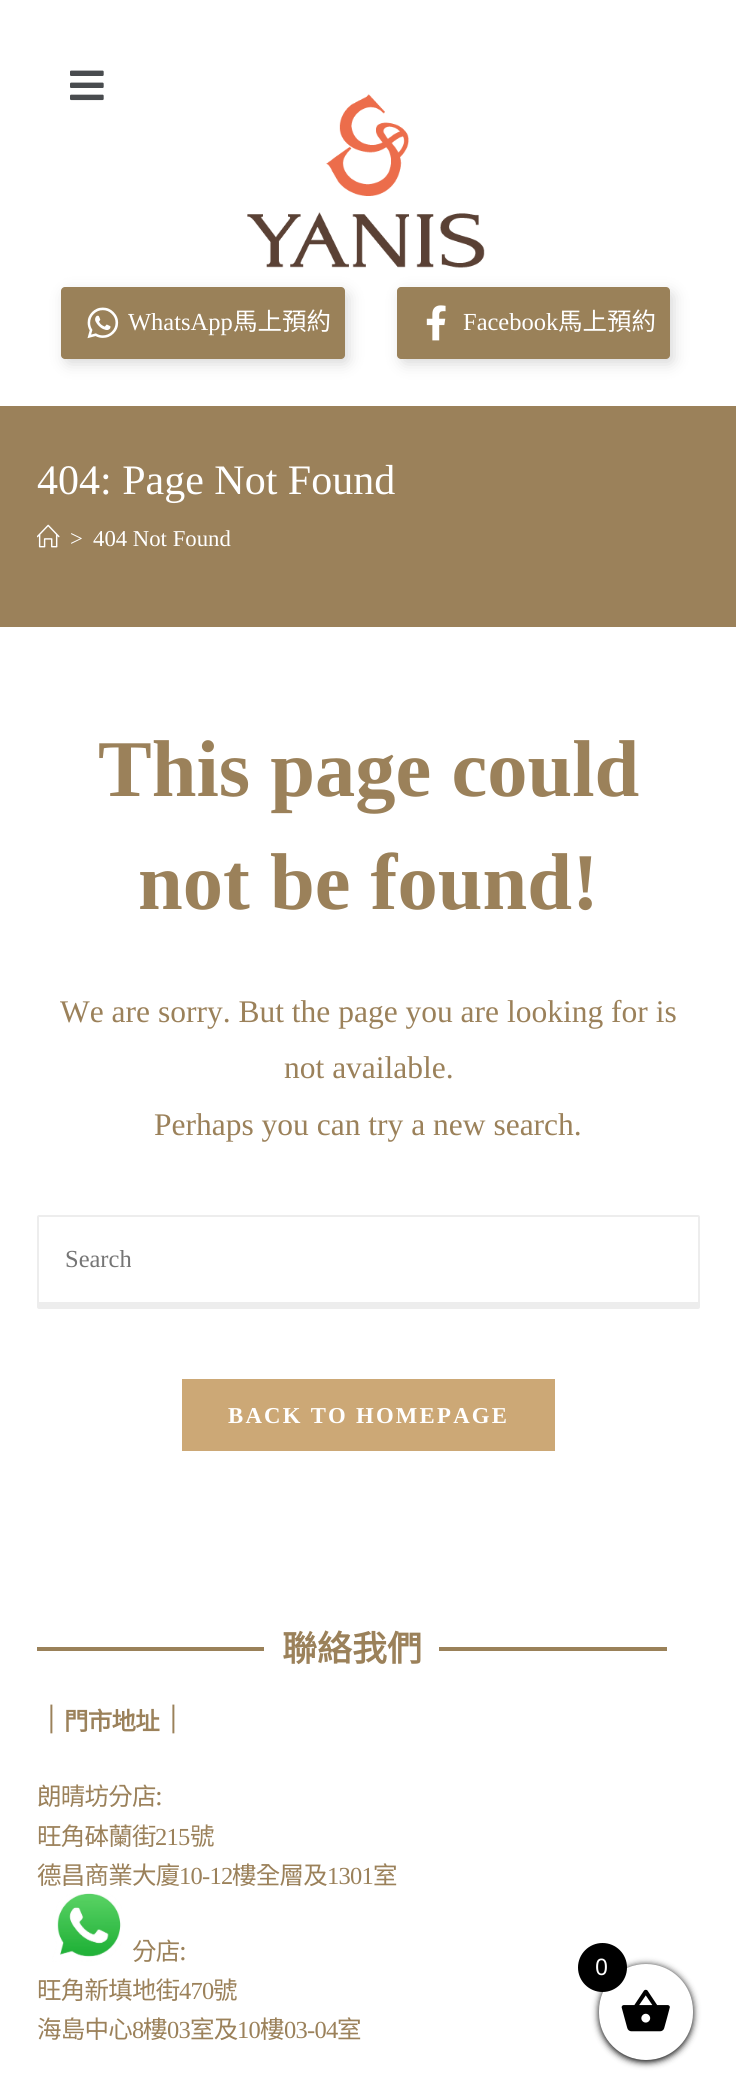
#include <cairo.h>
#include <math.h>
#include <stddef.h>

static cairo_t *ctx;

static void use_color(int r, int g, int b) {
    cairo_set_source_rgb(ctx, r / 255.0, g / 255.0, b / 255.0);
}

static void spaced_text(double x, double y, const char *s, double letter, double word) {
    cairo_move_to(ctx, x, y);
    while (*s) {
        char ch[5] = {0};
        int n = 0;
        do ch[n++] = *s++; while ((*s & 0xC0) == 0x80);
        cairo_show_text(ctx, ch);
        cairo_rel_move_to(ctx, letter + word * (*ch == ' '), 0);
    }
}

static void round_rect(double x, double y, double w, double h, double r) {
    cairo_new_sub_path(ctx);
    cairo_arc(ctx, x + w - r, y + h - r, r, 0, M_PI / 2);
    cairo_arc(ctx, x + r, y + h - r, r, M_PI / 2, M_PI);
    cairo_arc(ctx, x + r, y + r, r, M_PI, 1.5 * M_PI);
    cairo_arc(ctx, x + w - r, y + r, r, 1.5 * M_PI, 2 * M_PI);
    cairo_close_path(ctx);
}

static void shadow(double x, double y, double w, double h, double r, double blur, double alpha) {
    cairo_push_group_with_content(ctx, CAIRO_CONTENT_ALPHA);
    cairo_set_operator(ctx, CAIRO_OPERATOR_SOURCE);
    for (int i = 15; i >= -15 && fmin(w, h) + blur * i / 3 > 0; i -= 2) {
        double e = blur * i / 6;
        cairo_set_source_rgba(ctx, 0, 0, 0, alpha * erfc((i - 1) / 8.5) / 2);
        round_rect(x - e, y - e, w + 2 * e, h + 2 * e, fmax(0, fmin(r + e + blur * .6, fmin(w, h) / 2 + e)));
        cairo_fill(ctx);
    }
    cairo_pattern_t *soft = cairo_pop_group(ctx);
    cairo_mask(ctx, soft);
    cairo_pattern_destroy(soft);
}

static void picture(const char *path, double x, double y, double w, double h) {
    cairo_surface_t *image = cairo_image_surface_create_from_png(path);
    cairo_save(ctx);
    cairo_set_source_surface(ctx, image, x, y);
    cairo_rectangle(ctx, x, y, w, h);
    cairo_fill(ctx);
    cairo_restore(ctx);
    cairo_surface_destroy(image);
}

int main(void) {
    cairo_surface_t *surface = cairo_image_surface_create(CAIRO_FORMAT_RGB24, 736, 2097);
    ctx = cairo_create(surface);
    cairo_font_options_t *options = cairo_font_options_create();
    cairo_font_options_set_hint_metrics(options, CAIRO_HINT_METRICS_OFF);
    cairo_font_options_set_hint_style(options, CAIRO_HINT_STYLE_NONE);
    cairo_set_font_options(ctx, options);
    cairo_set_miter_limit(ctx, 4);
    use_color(255, 255, 255);
    cairo_paint(ctx);
    picture("img1.png", 70, 70, 34, 31);
    picture("img2.png", 247, 94, 238, 174);
    use_color(165, 165, 165);
    shadow(67, 294, 280, 68, 2, 8, 0.5);
    use_color(154, 129, 89);
    round_rect(61, 287, 284, 72, 4);
    cairo_fill(ctx);
    picture("img3.png", 87, 307, 32, 32);
    cairo_select_font_face(ctx, "Liberation Serif", CAIRO_FONT_SLANT_NORMAL, CAIRO_FONT_WEIGHT_NORMAL);
    cairo_set_font_size(ctx, 24.5);
    use_color(255, 255, 255);
    cairo_move_to(ctx, 128, 330);
    cairo_show_text(ctx, "WhatsApp");
    cairo_select_font_face(ctx, "Noto Sans CJK TC", CAIRO_FONT_SLANT_NORMAL, CAIRO_FONT_WEIGHT_NORMAL);
    cairo_move_to(ctx, 233, 330);
    cairo_show_text(ctx, "馬上預約");
    use_color(165, 165, 165);
    shadow(403, 294, 269, 68, 2, 8, 0.5);
    use_color(154, 129, 89);
    round_rect(397, 287, 273, 72, 4);
    cairo_fill(ctx);
    picture("img4.png", 426, 305, 20, 36);
    cairo_select_font_face(ctx, "Liberation Serif", CAIRO_FONT_SLANT_NORMAL, CAIRO_FONT_WEIGHT_NORMAL);
    use_color(255, 255, 255);
    cairo_move_to(ctx, 463, 330);
    cairo_show_text(ctx, "Facebook");
    cairo_select_font_face(ctx, "Noto Sans CJK TC", CAIRO_FONT_SLANT_NORMAL, CAIRO_FONT_WEIGHT_NORMAL);
    cairo_move_to(ctx, 558, 330);
    cairo_show_text(ctx, "馬上預約");
    use_color(155, 129, 90);
    cairo_rectangle(ctx, 0, 406, 736, 221);
    cairo_fill(ctx);
    cairo_select_font_face(ctx, "Liberation Serif", CAIRO_FONT_SLANT_NORMAL, CAIRO_FONT_WEIGHT_NORMAL);
    cairo_set_font_size(ctx, 42);
    use_color(255, 255, 255);
    cairo_move_to(ctx, 37, 494);
    cairo_show_text(ctx, "404: Page Not Found");
    picture("img5.png", 37, 524, 23, 24);
    cairo_set_font_size(ctx, 22.75);
    cairo_move_to(ctx, 70, 546);
    cairo_show_text(ctx, ">");
    cairo_move_to(ctx, 93, 546);
    cairo_show_text(ctx, "404 Not Found");
    cairo_select_font_face(ctx, "Liberation Serif", CAIRO_FONT_SLANT_NORMAL, CAIRO_FONT_WEIGHT_BOLD);
    cairo_set_font_size(ctx, 80.5);
    use_color(155, 129, 90);
    cairo_move_to(ctx, 98, 796);
    cairo_show_text(ctx, "This page could");
    cairo_move_to(ctx, 138, 909);
    cairo_show_text(ctx, "not be found!");
    cairo_select_font_face(ctx, "Liberation Serif", CAIRO_FONT_SLANT_NORMAL, CAIRO_FONT_WEIGHT_NORMAL);
    cairo_set_font_size(ctx, 31.5);
    cairo_move_to(ctx, 60, 1022);
    cairo_show_text(ctx, "We are sorry. But the page you are looking for is");
    cairo_move_to(ctx, 284, 1078);
    cairo_show_text(ctx, "not available.");
    cairo_move_to(ctx, 154, 1135);
    cairo_show_text(ctx, "Perhaps you can try a new search.");
    round_rect(38, 1216, 661, 92, 1);
    use_color(237, 237, 237);
    cairo_stroke(ctx);
    cairo_rectangle(ctx, 39, 1302, 661, 5);
    cairo_fill(ctx);
    cairo_set_font_size(ctx, 24.5);
    use_color(117, 117, 117);
    cairo_move_to(ctx, 65, 1267);
    cairo_show_text(ctx, "Search");
    use_color(204, 168, 118);
    cairo_rectangle(ctx, 182, 1379, 373, 72);
    cairo_fill(ctx);
    cairo_select_font_face(ctx, "Liberation Serif", CAIRO_FONT_SLANT_NORMAL, CAIRO_FONT_WEIGHT_BOLD);
    cairo_set_font_size(ctx, 22.75);
    use_color(255, 255, 255);
    spaced_text(228, 1423, "BACK TO HOMEPAGE", 2.25, 0);
    use_color(154, 129, 89);
    cairo_rectangle(ctx, 37, 1647, 227, 4);
    cairo_fill(ctx);
    cairo_select_font_face(ctx, "Noto Sans CJK TC", CAIRO_FONT_SLANT_NORMAL, CAIRO_FONT_WEIGHT_BOLD);
    cairo_set_font_size(ctx, 35);
    use_color(155, 129, 90);
    cairo_move_to(ctx, 282, 1661);
    cairo_show_text(ctx, "聯絡我們");
    use_color(154, 129, 89);
    cairo_rectangle(ctx, 439, 1647, 228, 4);
    cairo_fill(ctx);
    cairo_set_font_size(ctx, 28);
    use_color(155, 129, 90);
    spaced_text(37, 1730, "｜", -0.75, 0);
    cairo_set_font_size(ctx, 24.5);
    spaced_text(64, 1730, "門市地址", -0.75, 0);
    cairo_set_font_size(ctx, 28);
    spaced_text(159, 1730, "｜", -0.75, 0);
    cairo_select_font_face(ctx, "Noto Sans CJK TC", CAIRO_FONT_SLANT_NORMAL, CAIRO_FONT_WEIGHT_NORMAL);
    cairo_set_font_size(ctx, 24.5);
    spaced_text(37, 1805, "朗晴坊分店", -0.75, 0);
    cairo_select_font_face(ctx, "Liberation Serif", CAIRO_FONT_SLANT_NORMAL, CAIRO_FONT_WEIGHT_NORMAL);
    cairo_set_font_size(ctx, 28);
    spaced_text(155, 1805, ":", -0.75, 0);
    cairo_select_font_face(ctx, "Noto Sans CJK TC", CAIRO_FONT_SLANT_NORMAL, CAIRO_FONT_WEIGHT_NORMAL);
    cairo_set_font_size(ctx, 24.5);
    spaced_text(37, 1845, "旺角砵蘭街", -0.75, 0);
    cairo_select_font_face(ctx, "Liberation Serif", CAIRO_FONT_SLANT_NORMAL, CAIRO_FONT_WEIGHT_NORMAL);
    spaced_text(155, 1845, "215", -0.75, 0);
    cairo_select_font_face(ctx, "Noto Sans CJK TC", CAIRO_FONT_SLANT_NORMAL, CAIRO_FONT_WEIGHT_NORMAL);
    spaced_text(190, 1845, "號", -0.75, 0);
    spaced_text(37, 1884, "德昌商業大廈", -0.75, 0);
    cairo_select_font_face(ctx, "Liberation Serif", CAIRO_FONT_SLANT_NORMAL, CAIRO_FONT_WEIGHT_NORMAL);
    spaced_text(179, 1884, "10-12", -0.75, 0);
    cairo_select_font_face(ctx, "Noto Sans CJK TC", CAIRO_FONT_SLANT_NORMAL, CAIRO_FONT_WEIGHT_NORMAL);
    spaced_text(232, 1884, "樓全層及", -0.75, 0);
    cairo_select_font_face(ctx, "Liberation Serif", CAIRO_FONT_SLANT_NORMAL, CAIRO_FONT_WEIGHT_NORMAL);
    spaced_text(327, 1884, "1301", -0.75, 0);
    cairo_select_font_face(ctx, "Noto Sans CJK TC", CAIRO_FONT_SLANT_NORMAL, CAIRO_FONT_WEIGHT_NORMAL);
    spaced_text(373, 1884, "室", -0.75, 0);
    spaced_text(132, 1960, "分店", -0.75, 0);
    cairo_select_font_face(ctx, "Liberation Serif", CAIRO_FONT_SLANT_NORMAL, CAIRO_FONT_WEIGHT_NORMAL);
    cairo_set_font_size(ctx, 28);
    spaced_text(179, 1960, ":", -0.75, 0);
    cairo_select_font_face(ctx, "Noto Sans CJK TC", CAIRO_FONT_SLANT_NORMAL, CAIRO_FONT_WEIGHT_NORMAL);
    cairo_set_font_size(ctx, 24.5);
    spaced_text(37, 1999, "旺角新填地街", -0.75, 0);
    cairo_select_font_face(ctx, "Liberation Serif", CAIRO_FONT_SLANT_NORMAL, CAIRO_FONT_WEIGHT_NORMAL);
    spaced_text(179, 1999, "470", -0.75, 0);
    cairo_select_font_face(ctx, "Noto Sans CJK TC", CAIRO_FONT_SLANT_NORMAL, CAIRO_FONT_WEIGHT_NORMAL);
    spaced_text(213, 1999, "號", -0.75, 0);
    spaced_text(37, 2038, "海島中心", -0.75, 0);
    cairo_select_font_face(ctx, "Liberation Serif", CAIRO_FONT_SLANT_NORMAL, CAIRO_FONT_WEIGHT_NORMAL);
    spaced_text(132, 2038, "8", -0.75, 0);
    cairo_select_font_face(ctx, "Noto Sans CJK TC", CAIRO_FONT_SLANT_NORMAL, CAIRO_FONT_WEIGHT_NORMAL);
    spaced_text(143, 2038, "樓", -0.75, 0);
    cairo_select_font_face(ctx, "Liberation Serif", CAIRO_FONT_SLANT_NORMAL, CAIRO_FONT_WEIGHT_NORMAL);
    spaced_text(167, 2038, "03", -0.75, 0);
    cairo_select_font_face(ctx, "Noto Sans CJK TC", CAIRO_FONT_SLANT_NORMAL, CAIRO_FONT_WEIGHT_NORMAL);
    spaced_text(190, 2038, "室及", -0.75, 0);
    cairo_select_font_face(ctx, "Liberation Serif", CAIRO_FONT_SLANT_NORMAL, CAIRO_FONT_WEIGHT_NORMAL);
    spaced_text(237, 2038, "10", -0.75, 0);
    cairo_select_font_face(ctx, "Noto Sans CJK TC", CAIRO_FONT_SLANT_NORMAL, CAIRO_FONT_WEIGHT_NORMAL);
    spaced_text(260, 2038, "樓", -0.75, 0);
    cairo_select_font_face(ctx, "Liberation Serif", CAIRO_FONT_SLANT_NORMAL, CAIRO_FONT_WEIGHT_NORMAL);
    spaced_text(284, 2038, "03-04", -0.75, 0);
    cairo_select_font_face(ctx, "Noto Sans CJK TC", CAIRO_FONT_SLANT_NORMAL, CAIRO_FONT_WEIGHT_NORMAL);
    spaced_text(337, 2038, "室", -0.75, 0);
    picture("img6.png", 52, 1893, 70, 69);
    use_color(0, 0, 0);
    shadow(599, 1965, 94, 97, 47, 3.5, 1);
    use_color(255, 255, 255);
    round_rect(599, 1964, 94, 96, 47);
    cairo_fill(ctx);
    use_color(0, 0, 0);
    cairo_arc(ctx, 602.5, 1967.5, 24.5, 0, 2 * M_PI);
    cairo_fill(ctx);
    cairo_select_font_face(ctx, "Noto Sans", CAIRO_FONT_SLANT_NORMAL, CAIRO_FONT_WEIGHT_NORMAL);
    cairo_set_font_size(ctx, 22.75);
    use_color(255, 255, 255);
    cairo_move_to(ctx, 595, 1975);
    cairo_show_text(ctx, "0");
    picture("img7.png", 621, 1989, 49, 43);
    cairo_surface_write_to_png(surface, "result.png");
    cairo_font_options_destroy(options);
    cairo_destroy(ctx);
    cairo_surface_destroy(surface);
    return 0;
}
